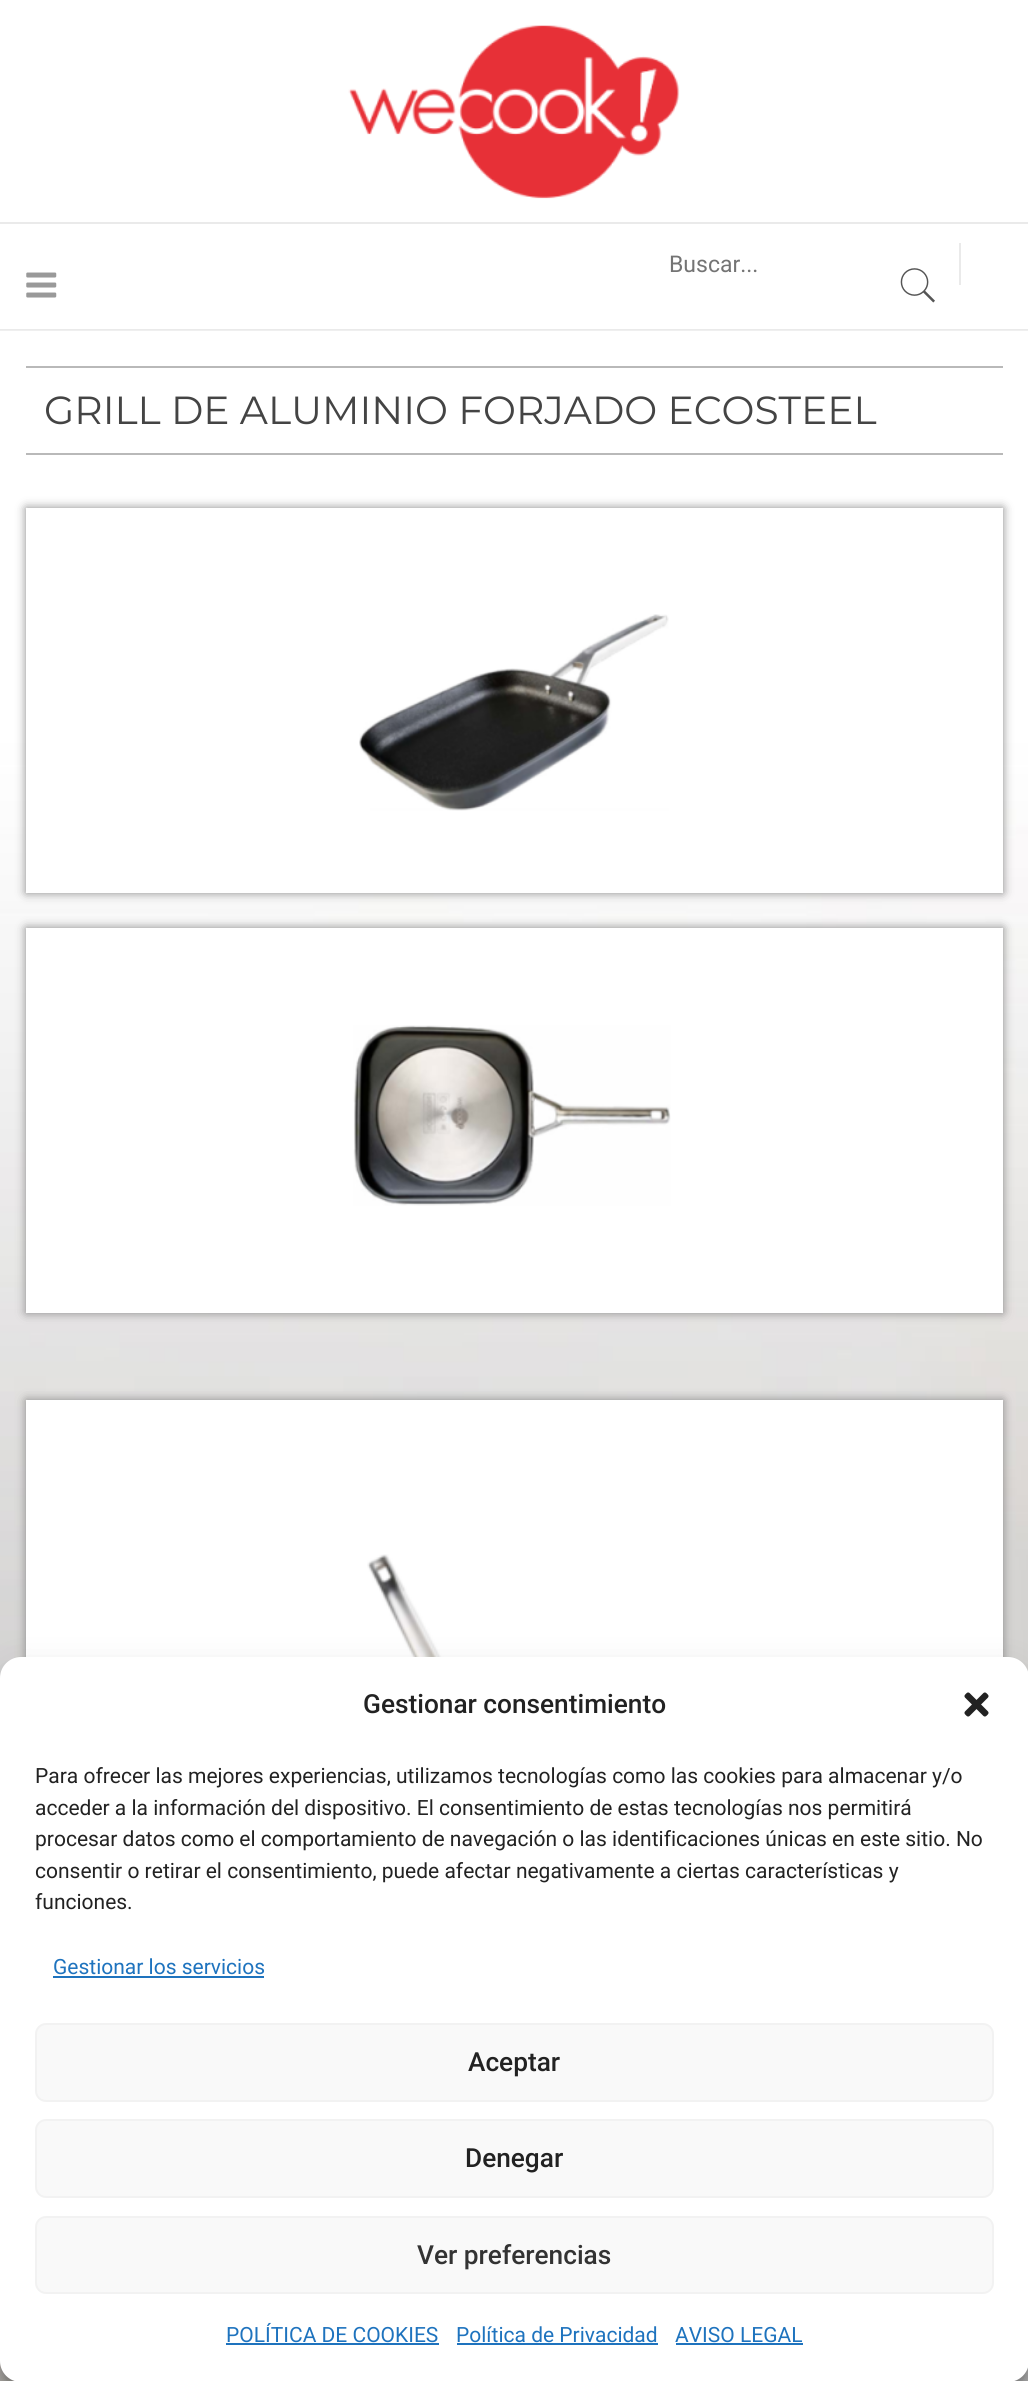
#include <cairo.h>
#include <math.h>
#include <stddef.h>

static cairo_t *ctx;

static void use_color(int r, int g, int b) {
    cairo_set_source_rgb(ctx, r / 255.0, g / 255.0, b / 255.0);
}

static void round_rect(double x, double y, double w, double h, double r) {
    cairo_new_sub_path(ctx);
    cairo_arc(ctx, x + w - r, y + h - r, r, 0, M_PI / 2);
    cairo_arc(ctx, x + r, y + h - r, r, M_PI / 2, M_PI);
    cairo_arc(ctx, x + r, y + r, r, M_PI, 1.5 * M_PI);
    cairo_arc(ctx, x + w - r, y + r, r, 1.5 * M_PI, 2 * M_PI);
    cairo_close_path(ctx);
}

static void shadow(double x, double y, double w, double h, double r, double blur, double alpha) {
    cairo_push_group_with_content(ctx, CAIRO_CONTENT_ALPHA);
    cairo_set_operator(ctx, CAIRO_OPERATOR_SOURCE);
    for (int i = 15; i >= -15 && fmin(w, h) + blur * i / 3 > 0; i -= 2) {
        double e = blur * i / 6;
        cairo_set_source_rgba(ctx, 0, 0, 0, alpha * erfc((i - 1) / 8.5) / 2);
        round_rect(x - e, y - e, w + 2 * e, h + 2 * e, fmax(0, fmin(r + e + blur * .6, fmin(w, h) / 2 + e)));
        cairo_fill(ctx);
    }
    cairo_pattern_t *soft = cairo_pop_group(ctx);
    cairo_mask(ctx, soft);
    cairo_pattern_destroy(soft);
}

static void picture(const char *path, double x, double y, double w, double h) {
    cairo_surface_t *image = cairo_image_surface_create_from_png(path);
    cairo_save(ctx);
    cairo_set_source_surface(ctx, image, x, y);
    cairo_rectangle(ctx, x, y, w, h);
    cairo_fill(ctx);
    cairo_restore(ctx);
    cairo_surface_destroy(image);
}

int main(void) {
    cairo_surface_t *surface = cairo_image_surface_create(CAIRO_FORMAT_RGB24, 1028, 2381);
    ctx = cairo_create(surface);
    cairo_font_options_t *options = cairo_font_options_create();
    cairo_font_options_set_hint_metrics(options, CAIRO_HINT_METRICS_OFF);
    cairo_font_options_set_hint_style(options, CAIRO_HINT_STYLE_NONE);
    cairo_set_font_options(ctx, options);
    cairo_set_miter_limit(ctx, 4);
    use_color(255, 255, 255);
    cairo_paint(ctx);
    use_color(234, 234, 234);
    cairo_rectangle(ctx, 0, 222, 1028, 2);
    cairo_fill(ctx);
    picture("img1.png", 348, 25, 332, 174);
    cairo_rectangle(ctx, 0, 329, 1028, 2);
    cairo_fill(ctx);
    cairo_rectangle(ctx, 959, 243, 2, 42);
    cairo_fill(ctx);
    cairo_select_font_face(ctx, "Roboto", CAIRO_FONT_SLANT_NORMAL, CAIRO_FONT_WEIGHT_NORMAL);
    cairo_set_font_size(ctx, 23);
    use_color(116, 116, 116);
    cairo_move_to(ctx, 669, 272);
    cairo_show_text(ctx, "Buscar...");
    picture("img2.png", 900, 268, 35, 35);
    picture("img3.png", 26, 272, 31, 26);
    picture("img4.png", 0, 330, 1028, 2051);
    use_color(185, 185, 185);
    cairo_rectangle(ctx, 26, 366, 977, 2);
    cairo_fill(ctx);
    cairo_rectangle(ctx, 26, 453, 977, 2);
    cairo_fill(ctx);
    cairo_select_font_face(ctx, "Montserrat", CAIRO_FONT_SLANT_NORMAL, CAIRO_FONT_WEIGHT_NORMAL);
    cairo_set_font_size(ctx, 39.2);
    use_color(68, 68, 68);
    cairo_move_to(ctx, 44, 424);
    cairo_show_text(ctx, "GRILL DE ALUMINIO FORJADO ECOSTEEL");
    use_color(136, 136, 136);
    shadow(26, 508, 977, 385, 0, 5, 1);
    use_color(255, 255, 255);
    cairo_rectangle(ctx, 26, 508, 977, 385);
    cairo_fill(ctx);
    picture("img5.png", 359, 614, 310, 197);
    use_color(136, 136, 136);
    shadow(26, 928, 977, 385, 0, 5, 1);
    use_color(255, 255, 255);
    cairo_rectangle(ctx, 26, 928, 977, 385);
    cairo_fill(ctx);
    picture("img6.png", 353, 1025, 318, 181);
    use_color(136, 136, 136);
    shadow(26, 1400, 977, 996, 0, 5, 1);
    use_color(255, 255, 255);
    cairo_rectangle(ctx, 26, 1400, 977, 257);
    cairo_fill(ctx);
    picture("img7.png", 367, 1554, 274, 103);
    use_color(0, 0, 0);
    shadow(0, 1668, 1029, 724, 21, 5, 0.23);
    shadow(0, 1675, 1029, 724, 21, 17.5, 0.19);
    use_color(255, 255, 255);
    round_rect(0, 1657, 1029, 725, 21);
    cairo_fill(ctx);
    cairo_select_font_face(ctx, "Roboto Medium", CAIRO_FONT_SLANT_NORMAL, CAIRO_FONT_WEIGHT_NORMAL);
    cairo_set_font_size(ctx, 26.25);
    use_color(34, 34, 34);
    cairo_move_to(ctx, 363, 1713);
    cairo_show_text(ctx, "Gestionar consentimiento");
    picture("img8.png", 964, 1692, 25, 25);
    cairo_select_font_face(ctx, "Roboto", CAIRO_FONT_SLANT_NORMAL, CAIRO_FONT_WEIGHT_NORMAL);
    cairo_set_font_size(ctx, 21);
    cairo_move_to(ctx, 35, 1783);
    cairo_show_text(ctx, "Para ofrecer las mejores experiencias, utilizamos tecnologías como las cookies para almacenar y/o");
    cairo_move_to(ctx, 35, 1815);
    cairo_show_text(ctx, "acceder a la información del dispositivo. El consentimiento de estas tecnologías nos permitirá");
    cairo_move_to(ctx, 35, 1846);
    cairo_show_text(ctx, "procesar datos como el comportamiento de navegación o las identificaciones únicas en este sitio. No");
    cairo_move_to(ctx, 35, 1878);
    cairo_show_text(ctx, "consentir o retirar el consentimiento, puede afectar negativamente a ciertas características y");
    cairo_move_to(ctx, 35, 1909);
    cairo_show_text(ctx, "funciones.");
    use_color(30, 115, 190);
    cairo_move_to(ctx, 53, 1974);
    cairo_show_text(ctx, "Gestionar los servicios");
    cairo_rectangle(ctx, 53, 1976, 211, 2);
    cairo_fill(ctx);
    use_color(249, 249, 249);
    round_rect(36, 2024, 957, 77, 10);
    cairo_fill_preserve(ctx);
    use_color(242, 242, 242);
    cairo_stroke(ctx);
    cairo_select_font_face(ctx, "Roboto Medium", CAIRO_FONT_SLANT_NORMAL, CAIRO_FONT_WEIGHT_NORMAL);
    cairo_set_font_size(ctx, 26.25);
    use_color(34, 34, 34);
    cairo_move_to(ctx, 468, 2071);
    cairo_show_text(ctx, "Aceptar");
    use_color(249, 249, 249);
    round_rect(36, 2120, 957, 77, 10);
    cairo_fill_preserve(ctx);
    use_color(242, 242, 242);
    cairo_stroke(ctx);
    use_color(34, 34, 34);
    cairo_move_to(ctx, 465, 2167);
    cairo_show_text(ctx, "Denegar");
    use_color(249, 249, 249);
    round_rect(36, 2217, 957, 76, 10);
    cairo_fill_preserve(ctx);
    use_color(242, 242, 242);
    cairo_stroke(ctx);
    use_color(51, 51, 51);
    cairo_move_to(ctx, 417, 2264);
    cairo_show_text(ctx, "Ver preferencias");
    cairo_select_font_face(ctx, "Roboto", CAIRO_FONT_SLANT_NORMAL, CAIRO_FONT_WEIGHT_NORMAL);
    cairo_set_font_size(ctx, 21);
    use_color(30, 115, 190);
    cairo_move_to(ctx, 226, 2342);
    cairo_show_text(ctx, "POLÍTICA DE COOKIES");
    cairo_rectangle(ctx, 226, 2343, 213, 2);
    cairo_fill(ctx);
    cairo_move_to(ctx, 456, 2342);
    cairo_show_text(ctx, "Política de Privacidad");
    cairo_rectangle(ctx, 457, 2343, 201, 2);
    cairo_fill(ctx);
    cairo_move_to(ctx, 675, 2342);
    cairo_show_text(ctx, "AVISO LEGAL");
    cairo_rectangle(ctx, 676, 2343, 127, 2);
    cairo_fill(ctx);
    cairo_surface_write_to_png(surface, "result.png");
    cairo_font_options_destroy(options);
    cairo_destroy(ctx);
    cairo_surface_destroy(surface);
    return 0;
}
